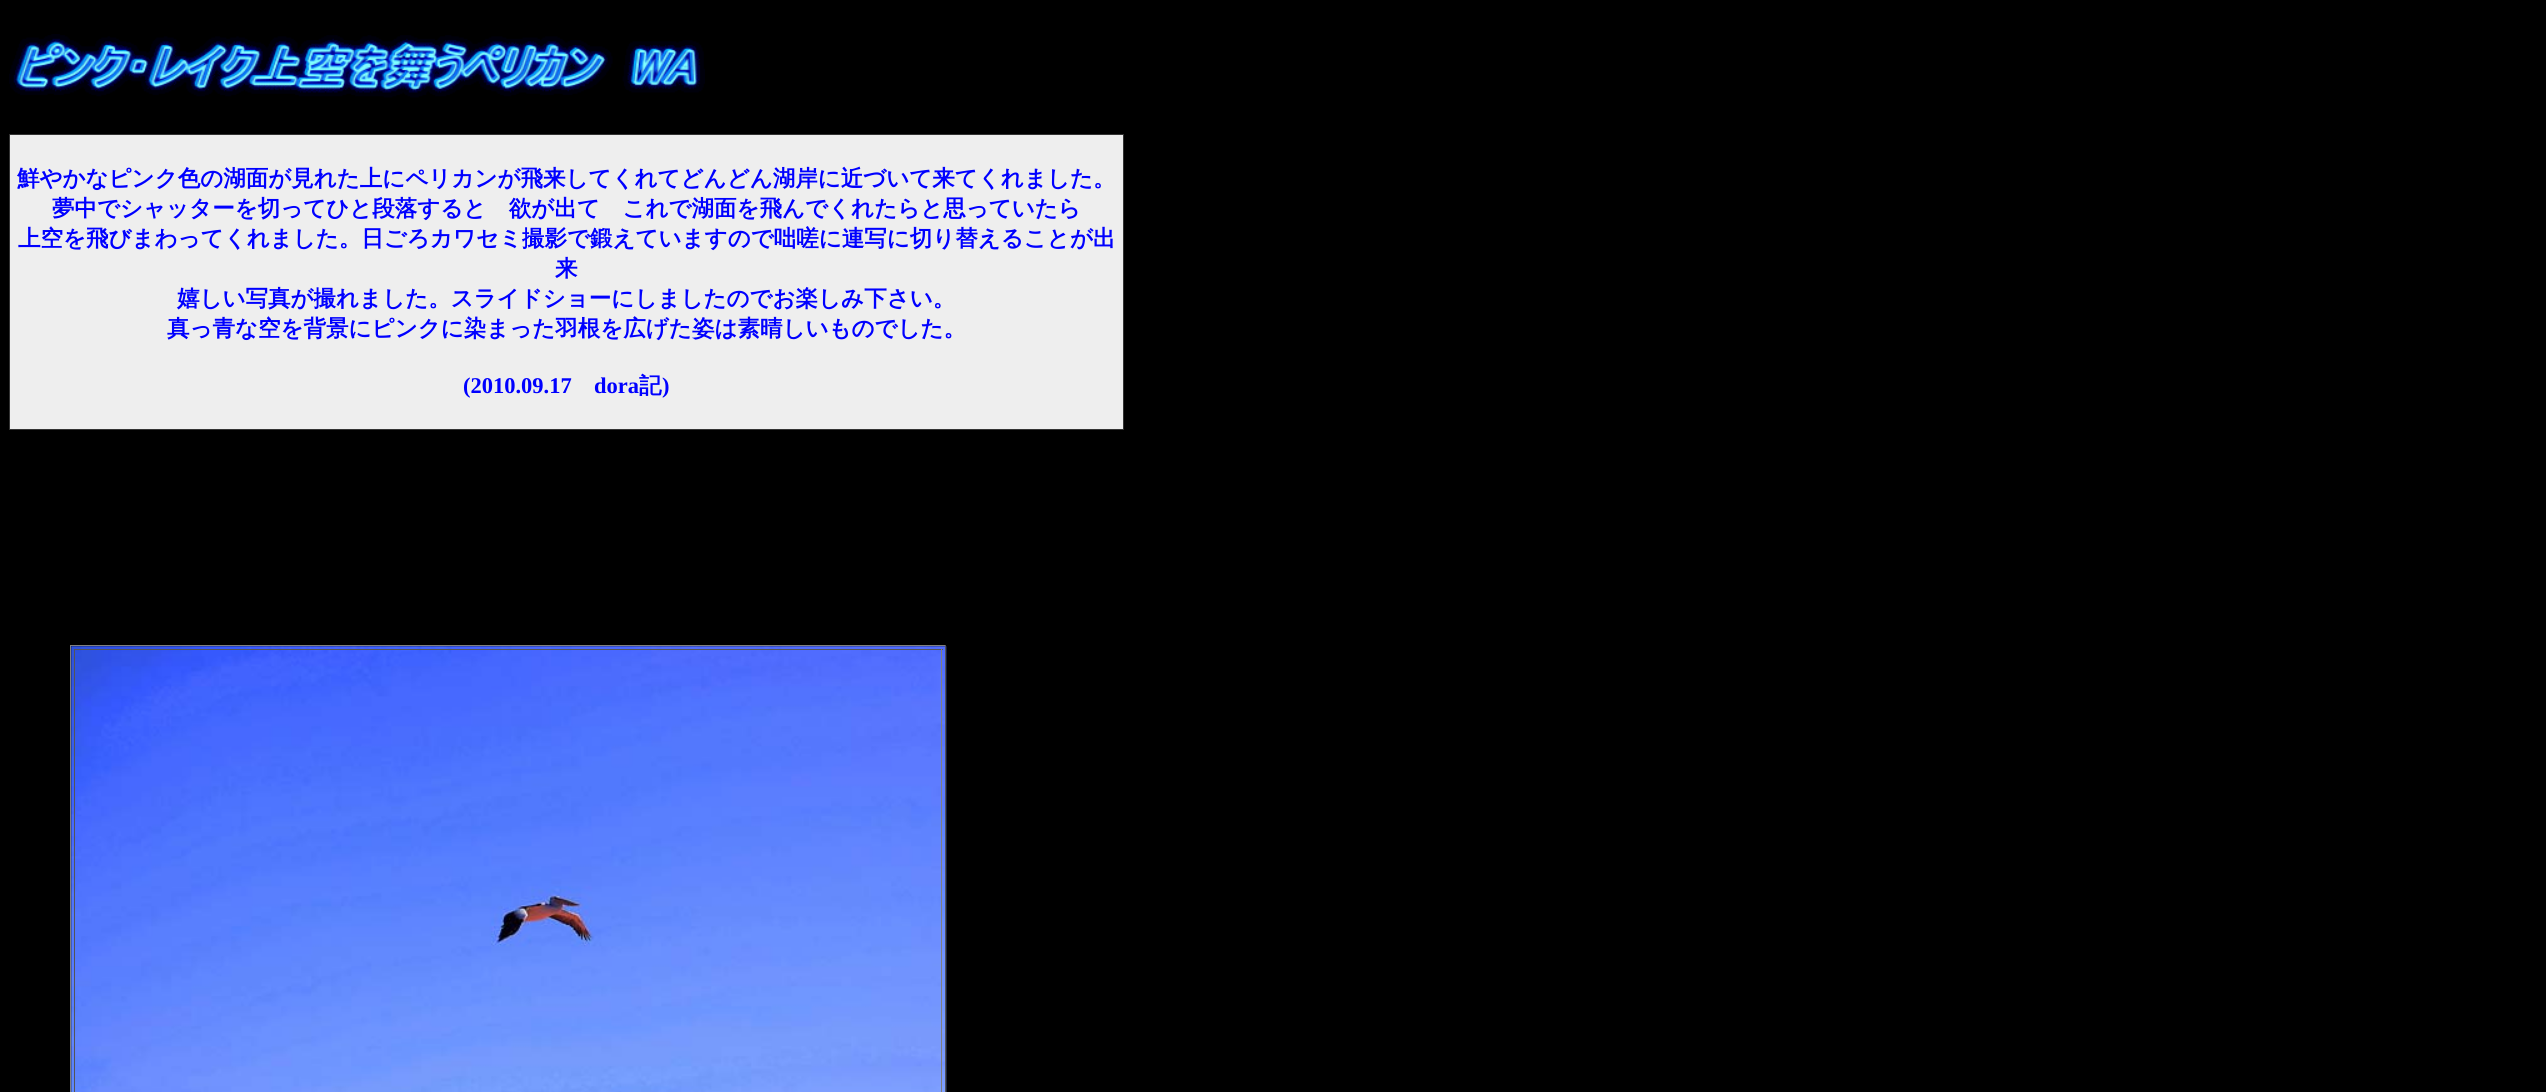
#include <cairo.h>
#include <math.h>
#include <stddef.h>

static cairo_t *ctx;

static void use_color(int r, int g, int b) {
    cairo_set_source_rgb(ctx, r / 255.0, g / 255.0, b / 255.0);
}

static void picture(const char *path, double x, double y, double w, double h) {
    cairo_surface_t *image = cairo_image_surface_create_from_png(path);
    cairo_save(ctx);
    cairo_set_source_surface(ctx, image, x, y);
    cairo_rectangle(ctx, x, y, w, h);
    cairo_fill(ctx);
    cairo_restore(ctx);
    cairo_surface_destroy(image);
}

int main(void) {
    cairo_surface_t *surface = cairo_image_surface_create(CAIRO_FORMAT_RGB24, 2546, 1092);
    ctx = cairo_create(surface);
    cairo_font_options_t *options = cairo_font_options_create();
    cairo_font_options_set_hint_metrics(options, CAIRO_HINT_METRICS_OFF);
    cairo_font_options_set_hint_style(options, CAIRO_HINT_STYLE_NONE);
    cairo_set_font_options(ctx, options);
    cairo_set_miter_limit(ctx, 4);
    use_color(0, 0, 0);
    cairo_paint(ctx);
    picture("img1.png", 9, 34, 696, 64);
    use_color(51, 51, 51);
    cairo_rectangle(ctx, 10, 135, 1114, 295);
    cairo_fill(ctx);
    cairo_rectangle(ctx, 9, 134, 1115, 1);
    cairo_fill(ctx);
    cairo_rectangle(ctx, 9, 134, 1, 296);
    cairo_fill(ctx);
    use_color(238, 238, 238);
    cairo_rectangle(ctx, 10, 135, 1113, 294);
    cairo_fill(ctx);
    cairo_select_font_face(ctx, "WenQuanYi Zen Hei", CAIRO_FONT_SLANT_NORMAL, CAIRO_FONT_WEIGHT_BOLD);
    cairo_set_font_size(ctx, 22.5);
    use_color(0, 0, 255);
    cairo_move_to(ctx, 17, 186);
    cairo_show_text(ctx, "鮮やかなピンク色の湖面が見れた上にペリカンが飛来してくれてどんどん湖岸に近づいて来てくれました。");
    cairo_move_to(ctx, 52, 216);
    cairo_show_text(ctx, "夢中でシャッターを切ってひと段落すると　欲が出て　これで湖面を飛んでくれたらと思っていたら");
    cairo_move_to(ctx, 18, 246);
    cairo_show_text(ctx, "上空を飛びまわってくれました。日ごろカワセミ撮影で鍛えていますので咄嗟に連写に切り替えることが出");
    cairo_move_to(ctx, 555, 276);
    cairo_show_text(ctx, "来");
    cairo_move_to(ctx, 177, 306);
    cairo_show_text(ctx, "嬉しい写真が撮れました。スライドショーにしましたのでお楽しみ下さい。");
    cairo_move_to(ctx, 167, 336);
    cairo_show_text(ctx, "真っ青な空を背景にピンクに染まった羽根を広げた姿は素晴しいものでした。");
    cairo_select_font_face(ctx, "Liberation Serif", CAIRO_FONT_SLANT_NORMAL, CAIRO_FONT_WEIGHT_BOLD);
    cairo_move_to(ctx, 463, 393);
    cairo_show_text(ctx, "(2010.09.17");
    cairo_move_to(ctx, 594, 393);
    cairo_show_text(ctx, "dora");
    cairo_select_font_face(ctx, "WenQuanYi Zen Hei", CAIRO_FONT_SLANT_NORMAL, CAIRO_FONT_WEIGHT_BOLD);
    cairo_move_to(ctx, 639, 393);
    cairo_show_text(ctx, "記");
    cairo_select_font_face(ctx, "Liberation Serif", CAIRO_FONT_SLANT_NORMAL, CAIRO_FONT_WEIGHT_BOLD);
    cairo_move_to(ctx, 662, 393);
    cairo_show_text(ctx, ")");
    use_color(128, 128, 128);
    cairo_rectangle(ctx, 70, 645, 876, 1);
    cairo_fill(ctx);
    picture("img2.png", 71, 646, 876, 446);
    use_color(85, 85, 85);
    cairo_rectangle(ctx, 945, 645, 1, 447);
    cairo_fill(ctx);
    use_color(128, 128, 128);
    cairo_rectangle(ctx, 70, 645, 1, 447);
    cairo_fill(ctx);
    use_color(85, 85, 85);
    cairo_rectangle(ctx, 74, 649, 869, 1);
    cairo_fill(ctx);
    use_color(128, 128, 128);
    cairo_rectangle(ctx, 941, 649, 1, 443);
    cairo_fill(ctx);
    use_color(85, 85, 85);
    cairo_rectangle(ctx, 74, 649, 1, 443);
    cairo_fill(ctx);
    cairo_surface_write_to_png(surface, "result.png");
    cairo_font_options_destroy(options);
    cairo_destroy(ctx);
    cairo_surface_destroy(surface);
    return 0;
}
